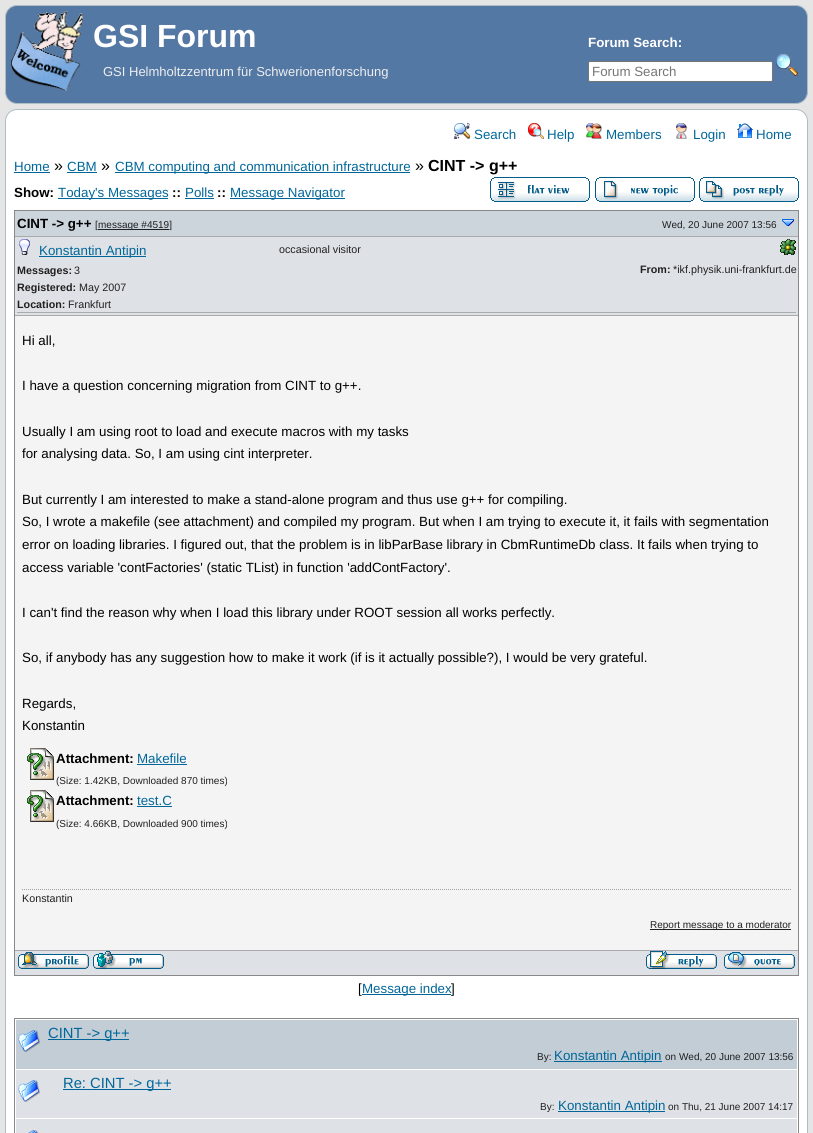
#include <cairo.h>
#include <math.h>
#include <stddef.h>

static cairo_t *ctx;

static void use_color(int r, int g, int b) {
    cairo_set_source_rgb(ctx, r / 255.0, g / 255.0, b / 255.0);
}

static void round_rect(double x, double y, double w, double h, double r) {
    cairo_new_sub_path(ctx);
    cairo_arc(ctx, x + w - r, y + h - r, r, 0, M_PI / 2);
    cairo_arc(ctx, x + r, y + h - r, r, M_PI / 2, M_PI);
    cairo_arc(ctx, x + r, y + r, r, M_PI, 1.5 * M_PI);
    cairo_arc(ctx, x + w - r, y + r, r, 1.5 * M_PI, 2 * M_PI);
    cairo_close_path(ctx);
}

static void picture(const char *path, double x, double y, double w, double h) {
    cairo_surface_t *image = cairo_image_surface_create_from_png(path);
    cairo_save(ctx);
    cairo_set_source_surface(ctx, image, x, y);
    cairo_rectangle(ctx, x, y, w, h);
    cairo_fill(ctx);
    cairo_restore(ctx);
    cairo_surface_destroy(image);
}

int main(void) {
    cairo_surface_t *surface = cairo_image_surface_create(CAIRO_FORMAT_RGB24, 813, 1133);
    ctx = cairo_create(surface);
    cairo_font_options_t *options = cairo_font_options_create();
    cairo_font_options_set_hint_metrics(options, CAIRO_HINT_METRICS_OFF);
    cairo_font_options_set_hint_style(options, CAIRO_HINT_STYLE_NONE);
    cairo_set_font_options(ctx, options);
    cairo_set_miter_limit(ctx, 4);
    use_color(229, 229, 229);
    cairo_paint(ctx);
    use_color(84, 120, 164);
    round_rect(5.5, 5.5, 802, 98, 11.5);
    cairo_fill_preserve(ctx);
    use_color(174, 189, 196);
    cairo_set_line_width(ctx, 1);
    cairo_stroke(ctx);
    picture("img1.png", 11, 11, 72, 80);
    cairo_select_font_face(ctx, "Liberation Sans", CAIRO_FONT_SLANT_NORMAL, CAIRO_FONT_WEIGHT_BOLD);
    cairo_set_font_size(ctx, 32);
    use_color(255, 255, 255);
    cairo_move_to(ctx, 93, 47);
    cairo_show_text(ctx, "GSI Forum");
    cairo_set_font_size(ctx, 13.33);
    cairo_move_to(ctx, 588, 47);
    cairo_show_text(ctx, "Forum Search:");
    round_rect(588.5, 61.5, 184, 20, 1.5);
    cairo_fill_preserve(ctx);
    use_color(118, 118, 118);
    cairo_stroke(ctx);
    cairo_select_font_face(ctx, "Liberation Sans", CAIRO_FONT_SLANT_NORMAL, CAIRO_FONT_WEIGHT_NORMAL);
    use_color(117, 117, 117);
    cairo_move_to(ctx, 592, 76);
    cairo_show_text(ctx, "Forum Search");
    picture("img2.png", 776, 54, 22, 22);
    cairo_set_font_size(ctx, 13);
    use_color(238, 238, 238);
    cairo_move_to(ctx, 103, 76);
    cairo_show_text(ctx, "GSI Helmholtzzentrum für Schwerionenforschung");
    use_color(255, 255, 255);
    round_rect(5.5, 109.5, 802, 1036, 11.5);
    cairo_fill_preserve(ctx);
    use_color(174, 189, 196);
    cairo_stroke(ctx);
    picture("img3.png", 454, 123, 16, 16);
    cairo_set_font_size(ctx, 13.33);
    use_color(0, 102, 153);
    cairo_move_to(ctx, 474, 139);
    cairo_show_text(ctx, "Search");
    picture("img4.png", 528, 123, 16, 16);
    cairo_move_to(ctx, 547, 139);
    cairo_show_text(ctx, "Help");
    picture("img5.png", 586, 123, 16, 16);
    cairo_move_to(ctx, 606, 139);
    cairo_show_text(ctx, "Members");
    picture("img6.png", 676, 123, 12, 16);
    cairo_move_to(ctx, 693, 139);
    cairo_show_text(ctx, "Login");
    picture("img7.png", 737, 123, 16, 15);
    cairo_move_to(ctx, 756, 139);
    cairo_show_text(ctx, "Home");
    cairo_move_to(ctx, 14, 171);
    cairo_show_text(ctx, "Home");
    cairo_rectangle(ctx, 14, 172, 36, 1);
    cairo_fill(ctx);
    cairo_set_font_size(ctx, 16);
    use_color(0, 0, 0);
    cairo_move_to(ctx, 54, 171);
    cairo_show_text(ctx, "»");
    cairo_set_font_size(ctx, 13.33);
    use_color(0, 102, 153);
    cairo_move_to(ctx, 67, 171);
    cairo_show_text(ctx, "CBM");
    cairo_rectangle(ctx, 67, 172, 30, 1);
    cairo_fill(ctx);
    cairo_set_font_size(ctx, 16);
    use_color(0, 0, 0);
    cairo_move_to(ctx, 101, 171);
    cairo_show_text(ctx, "»");
    use_color(0, 102, 153);
    cairo_rectangle(ctx, 115, 172, 295, 1);
    cairo_fill(ctx);
    cairo_set_font_size(ctx, 13.33);
    cairo_move_to(ctx, 115, 171);
    cairo_show_text(ctx, "CBM computing and communication infrastructure");
    cairo_set_font_size(ctx, 16);
    use_color(0, 0, 0);
    cairo_move_to(ctx, 415, 171);
    cairo_show_text(ctx, "»");
    cairo_select_font_face(ctx, "Liberation Sans", CAIRO_FONT_SLANT_NORMAL, CAIRO_FONT_WEIGHT_BOLD);
    cairo_move_to(ctx, 428, 171);
    cairo_show_text(ctx, "CINT -> g++");
    cairo_set_font_size(ctx, 13.33);
    cairo_move_to(ctx, 14, 197);
    cairo_show_text(ctx, "Show:");
    use_color(0, 102, 153);
    cairo_rectangle(ctx, 58, 198, 110, 1);
    cairo_fill(ctx);
    cairo_select_font_face(ctx, "Liberation Sans", CAIRO_FONT_SLANT_NORMAL, CAIRO_FONT_WEIGHT_NORMAL);
    cairo_move_to(ctx, 58, 197);
    cairo_show_text(ctx, "Today's Messages");
    cairo_select_font_face(ctx, "Liberation Sans", CAIRO_FONT_SLANT_NORMAL, CAIRO_FONT_WEIGHT_BOLD);
    use_color(0, 0, 0);
    cairo_move_to(ctx, 172, 197);
    cairo_show_text(ctx, "::");
    cairo_select_font_face(ctx, "Liberation Sans", CAIRO_FONT_SLANT_NORMAL, CAIRO_FONT_WEIGHT_NORMAL);
    use_color(0, 102, 153);
    cairo_move_to(ctx, 185, 197);
    cairo_show_text(ctx, "Polls");
    cairo_rectangle(ctx, 185, 198, 29, 1);
    cairo_fill(ctx);
    cairo_select_font_face(ctx, "Liberation Sans", CAIRO_FONT_SLANT_NORMAL, CAIRO_FONT_WEIGHT_BOLD);
    use_color(0, 0, 0);
    cairo_move_to(ctx, 217, 197);
    cairo_show_text(ctx, "::");
    use_color(0, 102, 153);
    cairo_rectangle(ctx, 230, 198, 115, 1);
    cairo_fill(ctx);
    cairo_select_font_face(ctx, "Liberation Sans", CAIRO_FONT_SLANT_NORMAL, CAIRO_FONT_WEIGHT_NORMAL);
    cairo_move_to(ctx, 230, 197);
    cairo_show_text(ctx, "Message Navigator");
    picture("img8.png", 490, 177, 100, 25);
    picture("img9.png", 595, 177, 100, 25);
    picture("img10.png", 699, 177, 100, 25);
    cairo_rectangle(ctx, 14.5, 210.5, 784, 765);
    use_color(136, 136, 136);
    cairo_stroke(ctx);
    use_color(204, 212, 220);
    cairo_rectangle(ctx, 15, 211, 783, 25);
    cairo_fill(ctx);
    use_color(170, 170, 170);
    cairo_rectangle(ctx, 15, 236, 783, 1);
    cairo_fill(ctx);
    cairo_select_font_face(ctx, "Liberation Sans", CAIRO_FONT_SLANT_NORMAL, CAIRO_FONT_WEIGHT_BOLD);
    use_color(0, 0, 0);
    cairo_move_to(ctx, 17, 228);
    cairo_show_text(ctx, "CINT -> g++");
    cairo_select_font_face(ctx, "Liberation Sans", CAIRO_FONT_SLANT_NORMAL, CAIRO_FONT_WEIGHT_NORMAL);
    cairo_set_font_size(ctx, 10);
    use_color(32, 32, 32);
    cairo_move_to(ctx, 95, 228);
    cairo_show_text(ctx, "[");
    cairo_rectangle(ctx, 98, 229, 71, 1);
    cairo_fill(ctx);
    cairo_move_to(ctx, 98, 228);
    cairo_show_text(ctx, "message #4519]");
    cairo_move_to(ctx, 662, 228);
    cairo_show_text(ctx, "Wed, 20 June 2007 13:56");
    picture("img11.png", 782, 219, 12, 7);
    use_color(222, 226, 230);
    cairo_rectangle(ctx, 15, 237, 783, 78);
    cairo_fill(ctx);
    use_color(170, 170, 170);
    cairo_rectangle(ctx, 15, 315, 783, 1);
    cairo_fill(ctx);
    cairo_rectangle(ctx, 17, 312, 779, 1);
    cairo_fill(ctx);
    picture("img12.png", 19, 239, 11, 16);
    use_color(0, 102, 153);
    cairo_rectangle(ctx, 39, 256, 107, 1);
    cairo_fill(ctx);
    cairo_set_font_size(ctx, 13.33);
    cairo_move_to(ctx, 39, 255);
    cairo_show_text(ctx, "Konstantin Antipin");
    cairo_select_font_face(ctx, "Liberation Sans", CAIRO_FONT_SLANT_NORMAL, CAIRO_FONT_WEIGHT_BOLD);
    cairo_set_font_size(ctx, 10.75);
    use_color(32, 32, 32);
    cairo_move_to(ctx, 17, 274);
    cairo_show_text(ctx, "Messages:");
    cairo_select_font_face(ctx, "Liberation Sans", CAIRO_FONT_SLANT_NORMAL, CAIRO_FONT_WEIGHT_NORMAL);
    cairo_move_to(ctx, 74, 274);
    cairo_show_text(ctx, "3");
    cairo_select_font_face(ctx, "Liberation Sans", CAIRO_FONT_SLANT_NORMAL, CAIRO_FONT_WEIGHT_BOLD);
    cairo_move_to(ctx, 17, 291);
    cairo_show_text(ctx, "Registered:");
    cairo_select_font_face(ctx, "Liberation Sans", CAIRO_FONT_SLANT_NORMAL, CAIRO_FONT_WEIGHT_NORMAL);
    cairo_move_to(ctx, 79, 291);
    cairo_show_text(ctx, "May 2007");
    cairo_select_font_face(ctx, "Liberation Sans", CAIRO_FONT_SLANT_NORMAL, CAIRO_FONT_WEIGHT_BOLD);
    cairo_move_to(ctx, 17, 308);
    cairo_show_text(ctx, "Location:");
    cairo_select_font_face(ctx, "Liberation Sans", CAIRO_FONT_SLANT_NORMAL, CAIRO_FONT_WEIGHT_NORMAL);
    cairo_move_to(ctx, 68, 308);
    cairo_show_text(ctx, "Frankfurt");
    cairo_move_to(ctx, 279, 253);
    cairo_show_text(ctx, "occasional visitor");
    picture("img13.png", 780, 239, 16, 16);
    cairo_select_font_face(ctx, "Liberation Sans", CAIRO_FONT_SLANT_NORMAL, CAIRO_FONT_WEIGHT_BOLD);
    cairo_move_to(ctx, 640, 273);
    cairo_show_text(ctx, "From:");
    cairo_select_font_face(ctx, "Liberation Sans", CAIRO_FONT_SLANT_NORMAL, CAIRO_FONT_WEIGHT_NORMAL);
    cairo_move_to(ctx, 673, 273);
    cairo_show_text(ctx, "*ikf.physik.uni-frankfurt.de");
    use_color(244, 244, 244);
    cairo_rectangle(ctx, 15, 316, 783, 634);
    cairo_fill(ctx);
    use_color(170, 170, 170);
    cairo_rectangle(ctx, 15, 950, 783, 1);
    cairo_fill(ctx);
    cairo_set_font_size(ctx, 13.33);
    use_color(0, 0, 0);
    cairo_move_to(ctx, 22, 345);
    cairo_show_text(ctx, "Hi all,");
    cairo_move_to(ctx, 22, 390);
    cairo_show_text(ctx, "I have a question concerning migration from CINT to g++.");
    cairo_move_to(ctx, 22, 436);
    cairo_show_text(ctx, "Usually I am using root to load and execute macros with my tasks");
    cairo_move_to(ctx, 22, 458);
    cairo_show_text(ctx, "for analysing data. So, I am using cint interpreter.");
    cairo_move_to(ctx, 22, 504);
    cairo_show_text(ctx, "But currently I am interested to make a stand-alone program and thus use g++ for compiling.");
    cairo_move_to(ctx, 22, 526);
    cairo_show_text(ctx, "So, I wrote a makefile (see attachment) and compiled my program. But when I am trying to execute it, it fails with segmentation");
    cairo_move_to(ctx, 22, 549);
    cairo_show_text(ctx, "error on loading libraries. I figured out, that the problem is in libParBase library in CbmRuntimeDb class. It fails when trying to");
    cairo_move_to(ctx, 22, 572);
    cairo_show_text(ctx, "access variable 'contFactories' (static TList) in function 'addContFactory'.");
    cairo_move_to(ctx, 22, 617);
    cairo_show_text(ctx, "I can't find the reason why when I load this library under ROOT session all works perfectly.");
    cairo_move_to(ctx, 22, 662);
    cairo_show_text(ctx, "So, if anybody has any suggestion how to make it work (if is it actually possible?), I would be very grateful.");
    cairo_move_to(ctx, 22, 708);
    cairo_show_text(ctx, "Regards,");
    cairo_move_to(ctx, 22, 730);
    cairo_show_text(ctx, "Konstantin");
    picture("img14.png", 27, 748, 27, 32);
    cairo_select_font_face(ctx, "Liberation Sans", CAIRO_FONT_SLANT_NORMAL, CAIRO_FONT_WEIGHT_BOLD);
    cairo_move_to(ctx, 56, 763);
    cairo_show_text(ctx, "Attachment:");
    cairo_select_font_face(ctx, "Liberation Sans", CAIRO_FONT_SLANT_NORMAL, CAIRO_FONT_WEIGHT_NORMAL);
    use_color(0, 102, 153);
    cairo_move_to(ctx, 137, 763);
    cairo_show_text(ctx, "Makefile");
    cairo_rectangle(ctx, 137, 764, 50, 1);
    cairo_fill(ctx);
    cairo_set_font_size(ctx, 10);
    use_color(32, 32, 32);
    cairo_move_to(ctx, 56, 784);
    cairo_show_text(ctx, "(Size: 1.42KB, Downloaded 870 times)");
    picture("img14.png", 27, 790, 27, 32);
    cairo_select_font_face(ctx, "Liberation Sans", CAIRO_FONT_SLANT_NORMAL, CAIRO_FONT_WEIGHT_BOLD);
    cairo_set_font_size(ctx, 13.33);
    use_color(0, 0, 0);
    cairo_move_to(ctx, 56, 805);
    cairo_show_text(ctx, "Attachment:");
    cairo_select_font_face(ctx, "Liberation Sans", CAIRO_FONT_SLANT_NORMAL, CAIRO_FONT_WEIGHT_NORMAL);
    use_color(0, 102, 153);
    cairo_move_to(ctx, 137, 805);
    cairo_show_text(ctx, "test.C");
    cairo_rectangle(ctx, 137, 806, 35, 1);
    cairo_fill(ctx);
    cairo_set_font_size(ctx, 10);
    use_color(32, 32, 32);
    cairo_move_to(ctx, 56, 827);
    cairo_show_text(ctx, "(Size: 4.66KB, Downloaded 900 times)");
    cairo_new_path(ctx);
    cairo_move_to(ctx, 22, 889.5);
    cairo_line_to(ctx, 791, 889.5);
    use_color(160, 160, 160);
    cairo_set_dash(ctx, (double[]){1, 1}, 2, 0);
    cairo_stroke(ctx);
    cairo_set_font_size(ctx, 10.75);
    use_color(32, 32, 32);
    cairo_move_to(ctx, 22, 902);
    cairo_show_text(ctx, "Konstantin");
    cairo_rectangle(ctx, 650, 929, 141, 1);
    cairo_fill(ctx);
    cairo_set_font_size(ctx, 10);
    cairo_move_to(ctx, 650, 928);
    cairo_show_text(ctx, "Report message to a moderator");
    use_color(222, 226, 230);
    cairo_rectangle(ctx, 15, 951, 783, 24);
    cairo_fill(ctx);
    picture("img15.png", 18, 952, 71, 17);
    picture("img16.png", 93, 951, 71, 18);
    picture("img17.png", 646, 951, 71, 18);
    picture("img18.png", 724, 952, 71, 17);
    cairo_set_font_size(ctx, 13.33);
    use_color(0, 0, 0);
    cairo_move_to(ctx, 358, 993);
    cairo_show_text(ctx, "[");
    use_color(0, 102, 153);
    cairo_rectangle(ctx, 362, 994, 89, 1);
    cairo_fill(ctx);
    cairo_move_to(ctx, 362, 993);
    cairo_show_text(ctx, "Message index");
    use_color(0, 0, 0);
    cairo_move_to(ctx, 451, 993);
    cairo_show_text(ctx, "]");
    cairo_rectangle(ctx, 14.5, 1018.5, 784, 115);
    use_color(136, 136, 136);
    cairo_set_dash(ctx, NULL, 0, 0);
    cairo_stroke(ctx);
    use_color(194, 205, 214);
    cairo_rectangle(ctx, 16, 1020, 781, 49);
    cairo_fill(ctx);
    picture("img19.png", 18, 1030, 22, 22);
    use_color(0, 102, 153);
    cairo_rectangle(ctx, 48, 1039, 81, 1);
    cairo_fill(ctx);
    cairo_set_font_size(ctx, 14.75);
    cairo_move_to(ctx, 48, 1038);
    cairo_show_text(ctx, "CINT -> g++");
    cairo_set_font_size(ctx, 10);
    use_color(32, 32, 32);
    cairo_move_to(ctx, 537, 1060);
    cairo_show_text(ctx, "By:");
    use_color(0, 102, 153);
    cairo_rectangle(ctx, 554, 1061, 108, 1);
    cairo_fill(ctx);
    cairo_set_font_size(ctx, 13.33);
    cairo_move_to(ctx, 554, 1060);
    cairo_show_text(ctx, "Konstantin Antipin");
    cairo_set_font_size(ctx, 10);
    use_color(32, 32, 32);
    cairo_move_to(ctx, 665, 1060);
    cairo_show_text(ctx, "on Wed, 20 June 2007 13:56");
    use_color(222, 226, 230);
    cairo_rectangle(ctx, 16, 1070, 781, 48);
    cairo_fill(ctx);
    picture("img20.png", 18, 1080, 22, 22);
    use_color(0, 102, 153);
    cairo_rectangle(ctx, 63, 1089, 108, 1);
    cairo_fill(ctx);
    cairo_set_font_size(ctx, 14.75);
    cairo_move_to(ctx, 63, 1088);
    cairo_show_text(ctx, "Re: CINT -> g++");
    cairo_set_font_size(ctx, 10);
    use_color(32, 32, 32);
    cairo_move_to(ctx, 540, 1110);
    cairo_show_text(ctx, "By:");
    use_color(0, 102, 153);
    cairo_rectangle(ctx, 558, 1111, 107, 1);
    cairo_fill(ctx);
    cairo_set_font_size(ctx, 13.33);
    cairo_move_to(ctx, 558, 1110);
    cairo_show_text(ctx, "Konstantin Antipin");
    cairo_set_font_size(ctx, 10);
    use_color(32, 32, 32);
    cairo_move_to(ctx, 668, 1110);
    cairo_show_text(ctx, "on Thu, 21 June 2007 14:17");
    use_color(222, 226, 230);
    cairo_rectangle(ctx, 16, 1119, 781, 14);
    cairo_fill(ctx);
    picture("img21.png", 27, 1130, 11, 3);
    cairo_surface_write_to_png(surface, "result.png");
    cairo_font_options_destroy(options);
    cairo_destroy(ctx);
    cairo_surface_destroy(surface);
    return 0;
}
